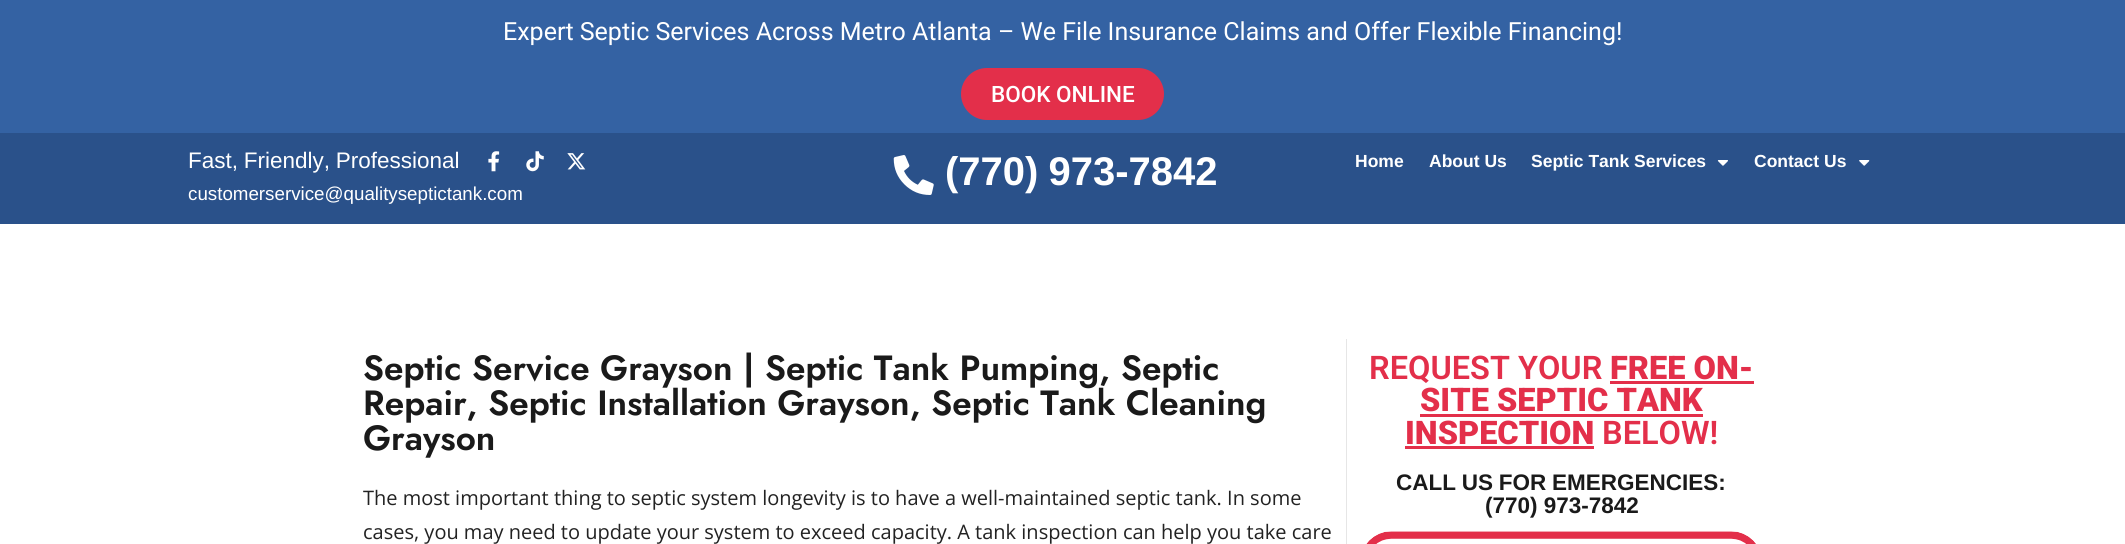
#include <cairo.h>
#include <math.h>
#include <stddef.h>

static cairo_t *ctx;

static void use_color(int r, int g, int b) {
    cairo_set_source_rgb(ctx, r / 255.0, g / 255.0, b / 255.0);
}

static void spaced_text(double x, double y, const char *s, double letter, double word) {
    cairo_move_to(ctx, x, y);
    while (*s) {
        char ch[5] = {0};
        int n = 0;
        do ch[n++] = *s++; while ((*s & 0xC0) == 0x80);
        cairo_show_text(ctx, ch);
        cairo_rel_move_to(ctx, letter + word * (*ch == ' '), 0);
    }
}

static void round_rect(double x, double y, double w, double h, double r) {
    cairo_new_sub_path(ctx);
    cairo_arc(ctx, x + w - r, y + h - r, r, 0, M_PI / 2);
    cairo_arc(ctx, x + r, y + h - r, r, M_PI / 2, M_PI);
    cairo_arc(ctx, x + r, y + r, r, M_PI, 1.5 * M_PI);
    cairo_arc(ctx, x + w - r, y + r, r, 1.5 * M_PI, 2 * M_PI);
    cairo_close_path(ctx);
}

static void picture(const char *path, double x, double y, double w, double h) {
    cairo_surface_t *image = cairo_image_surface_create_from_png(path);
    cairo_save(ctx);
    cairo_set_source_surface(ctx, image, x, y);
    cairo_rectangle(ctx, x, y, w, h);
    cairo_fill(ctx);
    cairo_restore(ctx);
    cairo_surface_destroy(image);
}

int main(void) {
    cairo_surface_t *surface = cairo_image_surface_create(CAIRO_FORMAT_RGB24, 2125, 544);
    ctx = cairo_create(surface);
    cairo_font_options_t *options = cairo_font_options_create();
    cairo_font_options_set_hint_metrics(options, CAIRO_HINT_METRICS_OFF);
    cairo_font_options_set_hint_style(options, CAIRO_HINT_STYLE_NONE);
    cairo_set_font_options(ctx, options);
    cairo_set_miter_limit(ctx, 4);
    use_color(255, 255, 255);
    cairo_paint(ctx);
    use_color(52, 98, 163);
    cairo_rectangle(ctx, 0, 0, 2125, 133);
    cairo_fill(ctx);
    cairo_select_font_face(ctx, "Roboto", CAIRO_FONT_SLANT_NORMAL, CAIRO_FONT_WEIGHT_NORMAL);
    cairo_set_font_size(ctx, 25);
    use_color(255, 255, 255);
    cairo_move_to(ctx, 503, 40);
    cairo_show_text(ctx, "Expert Septic Services Across Metro Atlanta – We File Insurance Claims and Offer Flexible Financing!");
    use_color(227, 47, 74);
    round_rect(961, 68, 203, 52, 26);
    cairo_fill(ctx);
    cairo_select_font_face(ctx, "Roboto Medium", CAIRO_FONT_SLANT_NORMAL, CAIRO_FONT_WEIGHT_NORMAL);
    cairo_set_font_size(ctx, 22.5);
    use_color(255, 255, 255);
    cairo_move_to(ctx, 991, 102);
    cairo_show_text(ctx, "BOOK ONLINE");
    use_color(42, 81, 138);
    cairo_rectangle(ctx, 0, 133, 2125, 91);
    cairo_fill(ctx);
    cairo_select_font_face(ctx, "Liberation Sans", CAIRO_FONT_SLANT_NORMAL, CAIRO_FONT_WEIGHT_NORMAL);
    use_color(255, 255, 255);
    spaced_text(188, 168, "Fast, Friendly, Professional", 0, -0.5);
    picture("img1.png", 488, 151, 12, 21);
    picture("img2.png", 526, 151, 18, 21);
    picture("img3.png", 567, 153, 19, 17);
    cairo_set_font_size(ctx, 18.75);
    cairo_move_to(ctx, 188, 200);
    cairo_show_text(ctx, "customerservice@qualityseptictank.com");
    picture("img4.png", 893, 155, 41, 40);
    cairo_select_font_face(ctx, "Liberation Sans", CAIRO_FONT_SLANT_NORMAL, CAIRO_FONT_WEIGHT_BOLD);
    cairo_set_font_size(ctx, 40);
    spaced_text(945, 185, "(770) 973-7842", 0, -1);
    cairo_set_font_size(ctx, 17.5);
    cairo_move_to(ctx, 1355, 167);
    cairo_show_text(ctx, "Home");
    cairo_move_to(ctx, 1429, 167);
    cairo_show_text(ctx, "About Us");
    cairo_move_to(ctx, 1531, 167);
    cairo_show_text(ctx, "Septic Tank Services");
    picture("img5.png", 1717, 160, 11, 6);
    cairo_move_to(ctx, 1754, 167);
    cairo_show_text(ctx, "Contact Us");
    picture("img6.png", 1859, 160, 11, 6);
    use_color(230, 230, 230);
    cairo_rectangle(ctx, 1346, 339, 1, 205);
    cairo_fill(ctx);
    cairo_select_font_face(ctx, "Jost SemiBold", CAIRO_FONT_SLANT_NORMAL, CAIRO_FONT_WEIGHT_NORMAL);
    cairo_set_font_size(ctx, 35);
    use_color(26, 26, 26);
    cairo_move_to(ctx, 363, 380);
    cairo_show_text(ctx, "Septic Service Grayson | Septic Tank Pumping, Septic");
    cairo_move_to(ctx, 363, 415);
    cairo_show_text(ctx, "Repair, Septic Installation Grayson, Septic Tank Cleaning");
    cairo_move_to(ctx, 363, 450);
    cairo_show_text(ctx, "Grayson");
    cairo_select_font_face(ctx, "Open Sans", CAIRO_FONT_SLANT_NORMAL, CAIRO_FONT_WEIGHT_NORMAL);
    cairo_set_font_size(ctx, 20);
    use_color(34, 34, 34);
    cairo_move_to(ctx, 363, 505);
    cairo_show_text(ctx, "The most important thing to septic system longevity is to have a well-maintained septic tank. In some");
    cairo_move_to(ctx, 363, 539);
    cairo_show_text(ctx, "cases, you may need to update your system to exceed capacity. A tank inspection can help you take care");
    cairo_select_font_face(ctx, "Roboto SemiBold", CAIRO_FONT_SLANT_NORMAL, CAIRO_FONT_WEIGHT_NORMAL);
    cairo_set_font_size(ctx, 32.5);
    use_color(227, 47, 74);
    cairo_move_to(ctx, 1369, 379);
    cairo_show_text(ctx, "REQUEST YOUR");
    cairo_select_font_face(ctx, "Roboto Black", CAIRO_FONT_SLANT_NORMAL, CAIRO_FONT_WEIGHT_NORMAL);
    cairo_move_to(ctx, 1610, 379);
    cairo_show_text(ctx, "FREE ON-");
    cairo_rectangle(ctx, 1610, 381, 144, 3);
    cairo_fill(ctx);
    cairo_move_to(ctx, 1420, 411);
    cairo_show_text(ctx, "SITE SEPTIC TANK");
    cairo_rectangle(ctx, 1420, 414, 283, 3);
    cairo_fill(ctx);
    cairo_move_to(ctx, 1405, 444);
    cairo_show_text(ctx, "INSPECTION");
    cairo_rectangle(ctx, 1405, 446, 189, 3);
    cairo_fill(ctx);
    cairo_select_font_face(ctx, "Roboto SemiBold", CAIRO_FONT_SLANT_NORMAL, CAIRO_FONT_WEIGHT_NORMAL);
    cairo_move_to(ctx, 1602, 444);
    cairo_show_text(ctx, "BELOW!");
    cairo_select_font_face(ctx, "Liberation Sans", CAIRO_FONT_SLANT_NORMAL, CAIRO_FONT_WEIGHT_BOLD);
    cairo_set_font_size(ctx, 22.5);
    use_color(26, 26, 26);
    spaced_text(1396, 490, "CALL US FOR EMERGENCIES:", 0, -0.5);
    cairo_move_to(ctx, 1485, 513);
    cairo_show_text(ctx, "(770) 973-7842");
    picture("img7.png", 1366, 531, 390, 13);
    cairo_surface_write_to_png(surface, "result.png");
    cairo_font_options_destroy(options);
    cairo_destroy(ctx);
    cairo_surface_destroy(surface);
    return 0;
}
